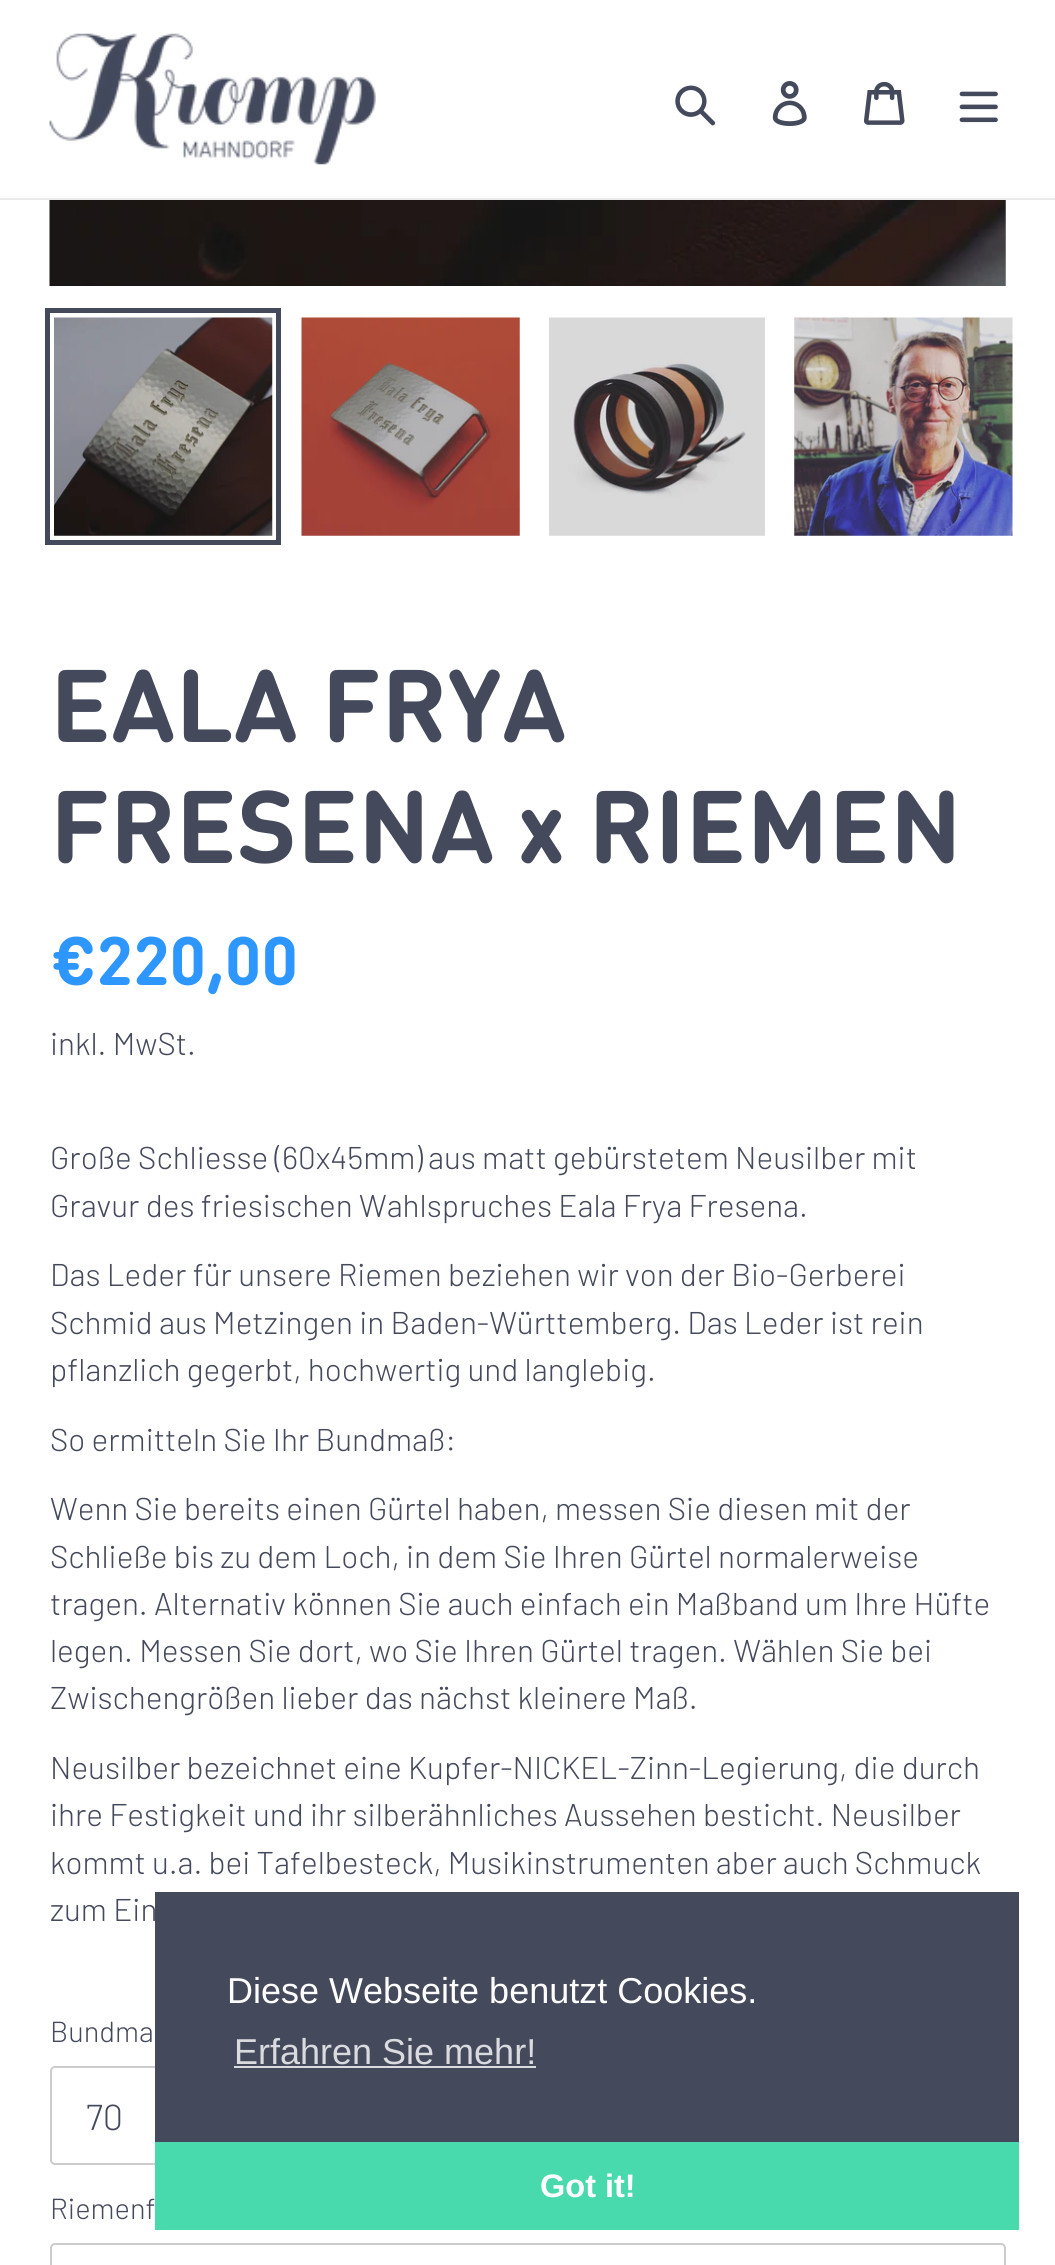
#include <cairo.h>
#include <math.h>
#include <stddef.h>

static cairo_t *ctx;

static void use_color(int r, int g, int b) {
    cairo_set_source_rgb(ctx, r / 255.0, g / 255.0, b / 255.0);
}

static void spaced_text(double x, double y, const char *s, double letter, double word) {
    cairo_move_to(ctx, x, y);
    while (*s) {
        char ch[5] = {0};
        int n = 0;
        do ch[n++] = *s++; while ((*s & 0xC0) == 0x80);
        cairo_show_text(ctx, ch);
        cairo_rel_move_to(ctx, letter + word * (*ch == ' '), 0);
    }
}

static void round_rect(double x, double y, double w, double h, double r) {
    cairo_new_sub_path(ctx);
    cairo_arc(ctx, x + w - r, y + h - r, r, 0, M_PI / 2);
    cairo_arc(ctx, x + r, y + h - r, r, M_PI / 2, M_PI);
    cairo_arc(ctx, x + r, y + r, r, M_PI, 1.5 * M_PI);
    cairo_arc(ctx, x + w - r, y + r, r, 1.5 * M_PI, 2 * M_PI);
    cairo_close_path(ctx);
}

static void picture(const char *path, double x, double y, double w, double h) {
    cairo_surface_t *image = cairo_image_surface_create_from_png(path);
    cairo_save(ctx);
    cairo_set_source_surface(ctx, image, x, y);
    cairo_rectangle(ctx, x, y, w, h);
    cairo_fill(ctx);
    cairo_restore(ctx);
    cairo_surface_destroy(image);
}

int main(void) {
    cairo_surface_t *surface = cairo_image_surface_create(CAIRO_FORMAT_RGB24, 1055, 2265);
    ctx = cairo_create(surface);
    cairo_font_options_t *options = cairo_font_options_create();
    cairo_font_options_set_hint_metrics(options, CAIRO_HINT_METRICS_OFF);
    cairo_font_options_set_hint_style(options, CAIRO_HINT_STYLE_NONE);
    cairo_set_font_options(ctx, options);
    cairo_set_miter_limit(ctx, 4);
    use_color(255, 255, 255);
    cairo_paint(ctx);
    use_color(235, 235, 235);
    cairo_rectangle(ctx, 0, 198, 1055, 2);
    cairo_fill(ctx);
    picture("img1.png", 49, 33, 327, 132);
    picture("img2.png", 675, 85, 41, 41);
    picture("img3.png", 772, 81, 35, 45);
    picture("img4.png", 864, 81, 41, 44);
    picture("img5.png", 959, 91, 39, 32);
    picture("img6.png", 49, 200, 957, 86);
    cairo_rectangle(ctx, 47.5, 310.5, 231, 232);
    use_color(68, 73, 92);
    cairo_set_line_width(ctx, 5);
    cairo_stroke(ctx);
    picture("img7.png", 54, 317, 219, 219);
    picture("img8.png", 301, 317, 219, 219);
    picture("img9.png", 549, 317, 216, 219);
    picture("img10.png", 794, 317, 219, 219);
    cairo_select_font_face(ctx, "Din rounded", CAIRO_FONT_SLANT_NORMAL, CAIRO_FONT_WEIGHT_NORMAL);
    cairo_set_font_size(ctx, 101.25);
    cairo_move_to(ctx, 50, 742);
    cairo_show_text(ctx, "EALA FRYA");
    cairo_move_to(ctx, 50, 863);
    cairo_show_text(ctx, "FRESENA x RIEMEN");
    cairo_set_font_size(ctx, 67.5);
    use_color(46, 150, 255);
    cairo_move_to(ctx, 50, 985);
    cairo_show_text(ctx, "€220,00");
    cairo_select_font_face(ctx, "Barlow Light", CAIRO_FONT_SLANT_NORMAL, CAIRO_FONT_WEIGHT_NORMAL);
    cairo_set_font_size(ctx, 31.5);
    use_color(68, 73, 92);
    cairo_move_to(ctx, 50, 1055);
    cairo_show_text(ctx, "inkl. MwSt.");
    cairo_move_to(ctx, 50, 1169);
    cairo_show_text(ctx, "Große Schliesse (60x45mm)");
    cairo_move_to(ctx, 428, 1169);
    cairo_show_text(ctx, "aus matt gebürstetem Neusilber mit");
    cairo_move_to(ctx, 50, 1217);
    cairo_show_text(ctx, "Gravur des friesischen Wahlspruches Eala Frya Fresena.");
    cairo_move_to(ctx, 50, 1286);
    cairo_show_text(ctx, "Das Leder für unsere Riemen beziehen wir von der Bio-Gerberei");
    cairo_move_to(ctx, 50, 1334);
    cairo_show_text(ctx, "Schmid aus Metzingen in Baden-Württemberg. Das Leder ist rein");
    cairo_move_to(ctx, 50, 1381);
    cairo_show_text(ctx, "pflanzlich gegerbt, hochwertig und langlebig.");
    cairo_move_to(ctx, 50, 1451);
    cairo_show_text(ctx, "So ermitteln Sie Ihr Bundmaß:");
    cairo_move_to(ctx, 50, 1520);
    cairo_show_text(ctx, "Wenn Sie bereits einen Gürtel haben, messen Sie diesen mit der");
    cairo_move_to(ctx, 50, 1568);
    cairo_show_text(ctx, "Schließe bis zu dem Loch, in dem Sie Ihren Gürtel normalerweise");
    cairo_move_to(ctx, 50, 1615);
    cairo_show_text(ctx, "tragen. Alternativ können Sie auch einfach ein Maßband um Ihre Hüfte");
    cairo_move_to(ctx, 50, 1662);
    cairo_show_text(ctx, "legen. Messen Sie dort, wo Sie Ihren Gürtel tragen. Wählen Sie bei");
    cairo_move_to(ctx, 50, 1709);
    cairo_show_text(ctx, "Zwischengrößen lieber das nächst kleinere Maß.");
    cairo_move_to(ctx, 50, 1779);
    cairo_show_text(ctx, "Neusilber bezeichnet eine Kupfer-NICKEL-Zinn-Legierung, die durch");
    cairo_move_to(ctx, 50, 1826);
    cairo_show_text(ctx, "ihre Festigkeit und ihr silberähnliches Aussehen besticht. Neusilber");
    spaced_text(50, 1874, "kommt u.a. bei Tafelbesteck, Musikinstrumenten aber auch Schmuck", 0, -0.25);
    cairo_move_to(ctx, 50, 1921);
    cairo_show_text(ctx, "zum Ein");
    cairo_set_font_size(ctx, 29);
    cairo_move_to(ctx, 50, 2042);
    cairo_show_text(ctx, "Bundma");
    round_rect(51, 2067, 954, 97, 4);
    use_color(204, 204, 204);
    cairo_set_line_width(ctx, 2);
    cairo_stroke(ctx);
    cairo_set_font_size(ctx, 36);
    use_color(68, 73, 92);
    cairo_move_to(ctx, 86, 2130);
    cairo_show_text(ctx, "70");
    cairo_set_font_size(ctx, 29);
    cairo_move_to(ctx, 50, 2219);
    cairo_show_text(ctx, "Riemenf");
    round_rect(51, 2244, 954, 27, 4);
    use_color(204, 204, 204);
    cairo_stroke(ctx);
    use_color(68, 73, 92);
    cairo_rectangle(ctx, 155, 1892, 864, 250);
    cairo_fill(ctx);
    cairo_select_font_face(ctx, "Liberation Sans", CAIRO_FONT_SLANT_NORMAL, CAIRO_FONT_WEIGHT_NORMAL);
    cairo_set_font_size(ctx, 36);
    use_color(255, 255, 255);
    cairo_move_to(ctx, 227, 2003);
    cairo_show_text(ctx, "Diese Webseite benutzt Cookies.");
    use_color(218, 219, 222);
    cairo_move_to(ctx, 234, 2064);
    cairo_show_text(ctx, "Erfahren Sie mehr!");
    cairo_rectangle(ctx, 234, 2066, 302, 2);
    cairo_fill(ctx);
    use_color(72, 218, 172);
    cairo_rectangle(ctx, 155, 2142, 864, 88);
    cairo_fill(ctx);
    cairo_select_font_face(ctx, "Liberation Sans", CAIRO_FONT_SLANT_NORMAL, CAIRO_FONT_WEIGHT_BOLD);
    cairo_set_font_size(ctx, 32.5);
    use_color(255, 255, 255);
    cairo_move_to(ctx, 540, 2197);
    cairo_show_text(ctx, "Got it!");
    cairo_surface_write_to_png(surface, "result.png");
    cairo_font_options_destroy(options);
    cairo_destroy(ctx);
    cairo_surface_destroy(surface);
    return 0;
}
